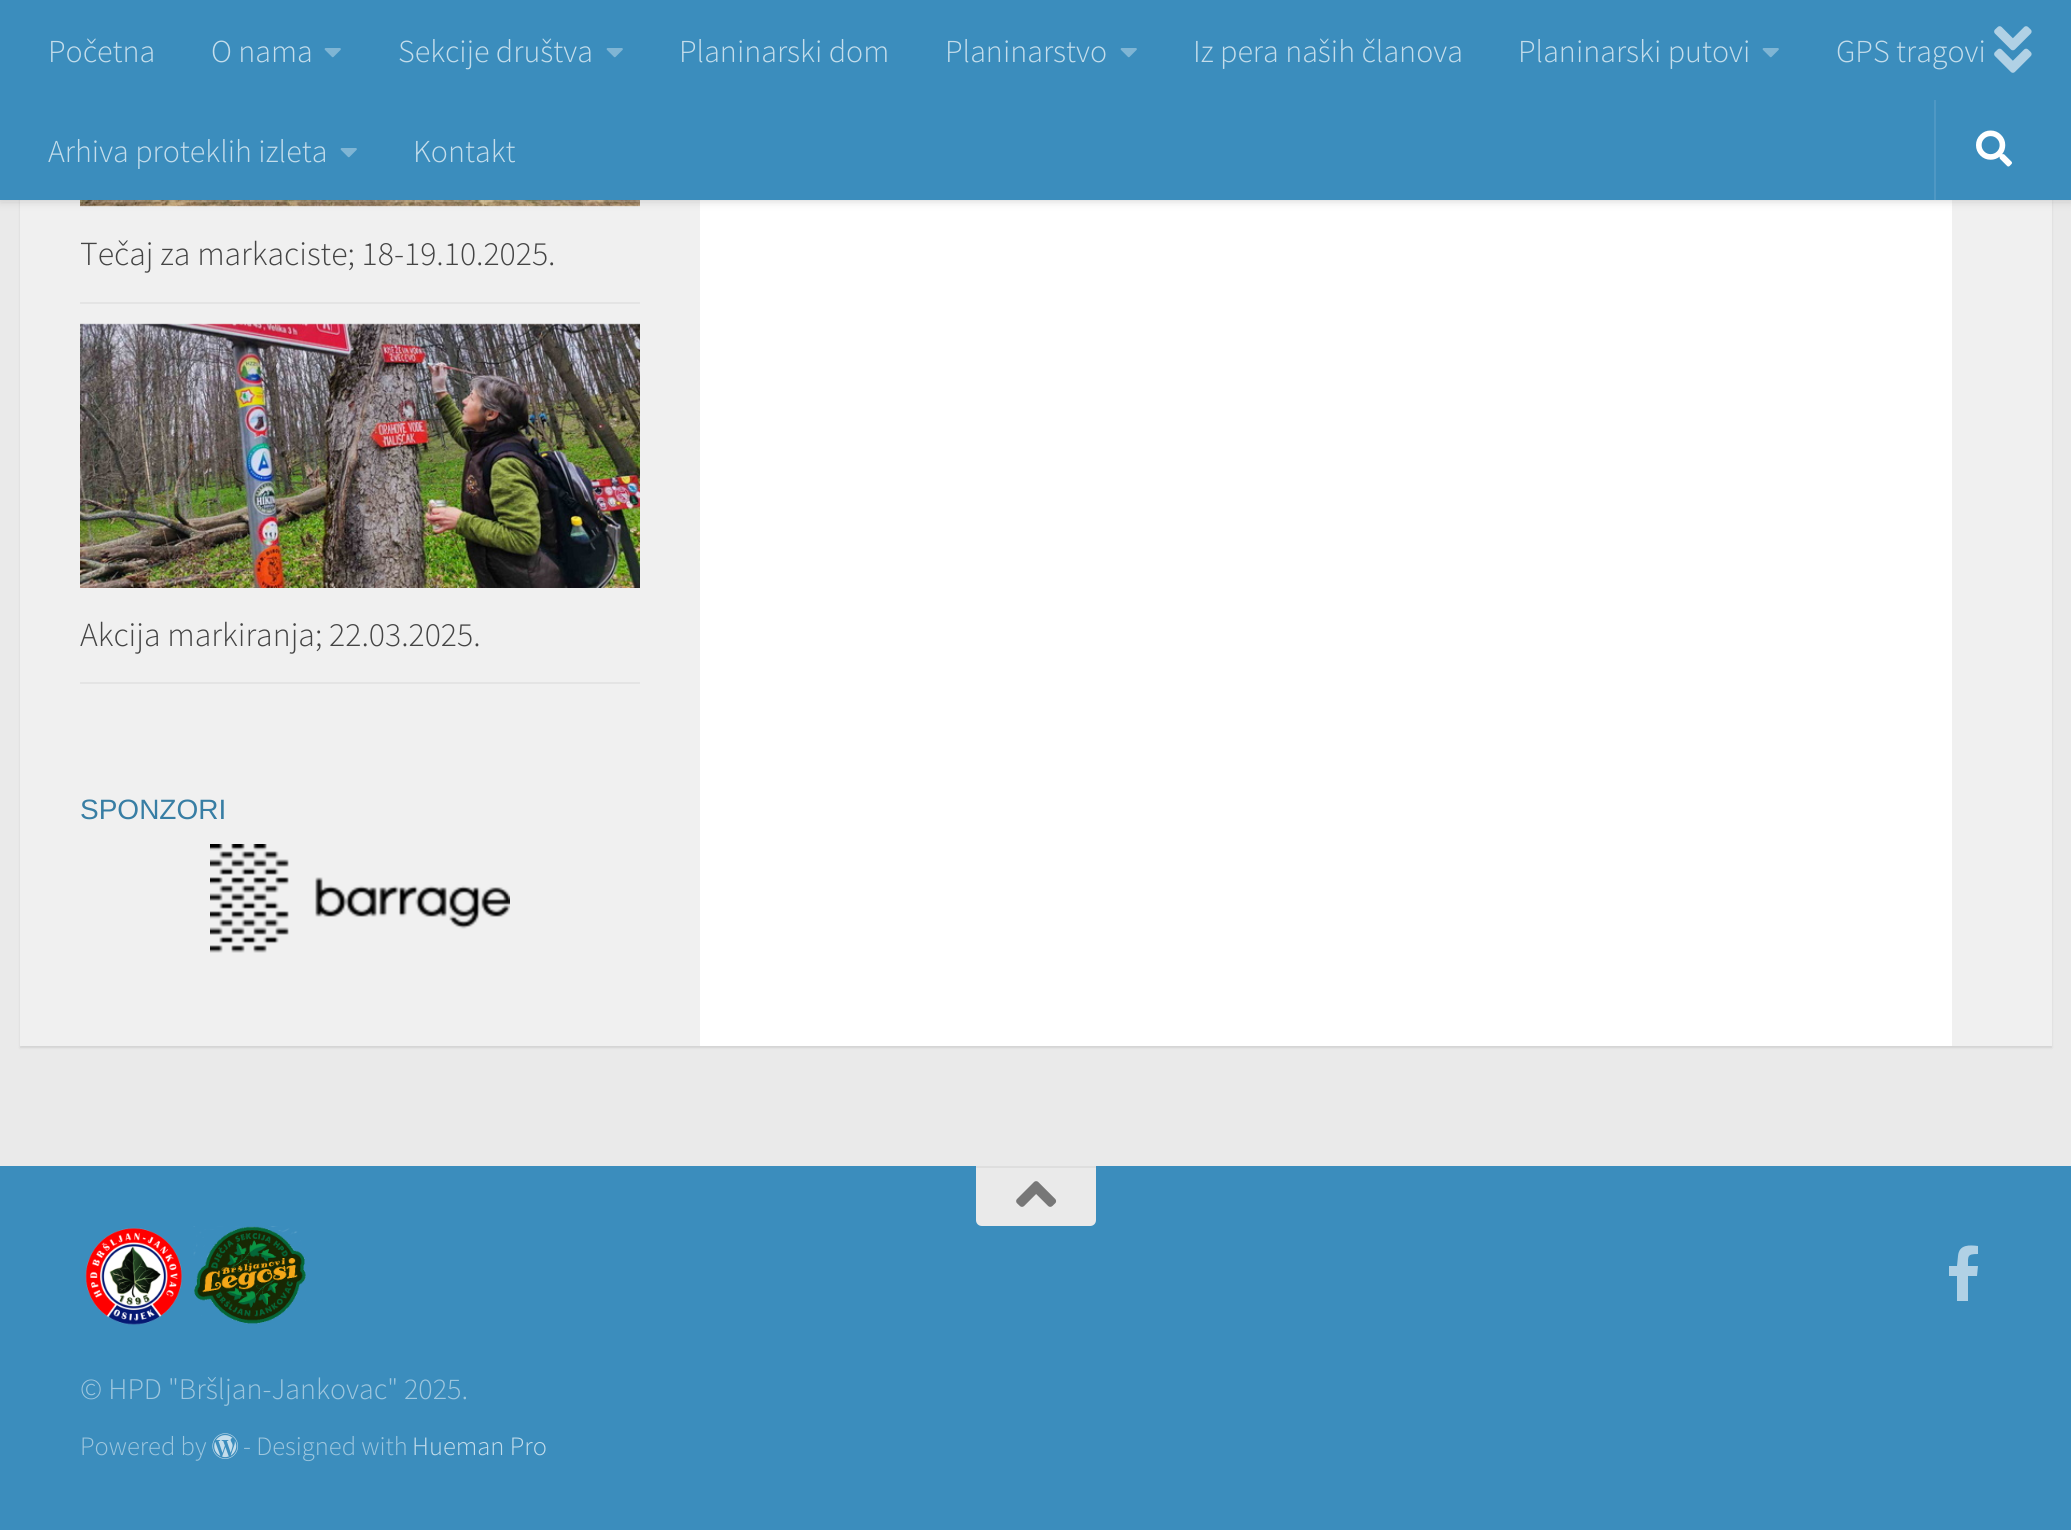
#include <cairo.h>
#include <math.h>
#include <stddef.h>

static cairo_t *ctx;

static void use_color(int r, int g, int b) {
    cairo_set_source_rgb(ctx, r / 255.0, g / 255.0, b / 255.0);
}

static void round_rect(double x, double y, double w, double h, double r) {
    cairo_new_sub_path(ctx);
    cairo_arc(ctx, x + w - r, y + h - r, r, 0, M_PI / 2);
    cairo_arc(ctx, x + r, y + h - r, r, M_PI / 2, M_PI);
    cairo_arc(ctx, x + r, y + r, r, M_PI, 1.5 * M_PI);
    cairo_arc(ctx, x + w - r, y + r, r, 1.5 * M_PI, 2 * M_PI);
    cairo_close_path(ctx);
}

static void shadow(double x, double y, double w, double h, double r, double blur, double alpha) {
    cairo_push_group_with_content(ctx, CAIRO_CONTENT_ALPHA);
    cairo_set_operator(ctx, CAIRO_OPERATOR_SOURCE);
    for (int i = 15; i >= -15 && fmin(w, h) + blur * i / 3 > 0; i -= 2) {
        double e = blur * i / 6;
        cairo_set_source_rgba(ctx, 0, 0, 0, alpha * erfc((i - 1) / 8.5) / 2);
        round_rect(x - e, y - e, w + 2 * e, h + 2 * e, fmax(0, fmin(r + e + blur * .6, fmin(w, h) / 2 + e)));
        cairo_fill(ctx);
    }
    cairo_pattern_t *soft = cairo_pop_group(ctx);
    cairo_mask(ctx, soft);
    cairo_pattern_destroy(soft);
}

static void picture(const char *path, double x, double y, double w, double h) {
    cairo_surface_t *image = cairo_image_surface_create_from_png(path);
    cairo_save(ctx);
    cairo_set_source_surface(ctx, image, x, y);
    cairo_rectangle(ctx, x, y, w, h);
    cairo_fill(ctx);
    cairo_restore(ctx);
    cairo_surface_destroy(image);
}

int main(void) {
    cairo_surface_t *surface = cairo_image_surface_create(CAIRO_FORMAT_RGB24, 2071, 1530);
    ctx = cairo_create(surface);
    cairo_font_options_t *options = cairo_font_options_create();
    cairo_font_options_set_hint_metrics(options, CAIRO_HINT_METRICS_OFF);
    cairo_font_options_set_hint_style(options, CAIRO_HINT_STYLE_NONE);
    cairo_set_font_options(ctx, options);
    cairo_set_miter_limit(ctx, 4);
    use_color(234, 234, 234);
    cairo_paint(ctx);
    use_color(0, 0, 0);
    shadow(20, -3, 2032, 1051, 0, 1, 0.1);
    use_color(255, 255, 255);
    cairo_rectangle(ctx, 700, 200, 1252, 846);
    cairo_fill(ctx);
    use_color(240, 240, 240);
    cairo_rectangle(ctx, 20, 200, 680, 846);
    cairo_fill(ctx);
    cairo_rectangle(ctx, 1952, 200, 100, 846);
    cairo_fill(ctx);
    picture("img4.png", 80, 200, 560, 7);
    cairo_set_source_rgba(ctx, 1, 1, 1, 0.15);
    cairo_rectangle(ctx, 0, 200, 2071, 2);
    cairo_fill(ctx);
    use_color(0, 0, 0);
    shadow(0, 0, 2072, 200, 0, 5, 0.2);
    use_color(59, 141, 189);
    cairo_rectangle(ctx, 0, 0, 2071, 200);
    cairo_fill(ctx);
    cairo_select_font_face(ctx, "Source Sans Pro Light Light", CAIRO_FONT_SLANT_NORMAL, CAIRO_FONT_WEIGHT_NORMAL);
    cairo_set_font_size(ctx, 32);
    use_color(196, 221, 235);
    cairo_move_to(ctx, 48, 62);
    cairo_show_text(ctx, "Početna");
    cairo_move_to(ctx, 211, 62);
    cairo_show_text(ctx, "O nama");
    picture("img1.png", 324, 48, 17, 10);
    cairo_move_to(ctx, 398, 62);
    cairo_show_text(ctx, "Sekcije društva");
    picture("img1.png", 606, 48, 17, 10);
    cairo_move_to(ctx, 679, 62);
    cairo_show_text(ctx, "Planinarski dom");
    cairo_move_to(ctx, 945, 62);
    cairo_show_text(ctx, "Planinarstvo");
    picture("img1.png", 1120, 48, 17, 10);
    cairo_move_to(ctx, 1193, 62);
    cairo_show_text(ctx, "Iz pera naših članova");
    cairo_move_to(ctx, 1518, 62);
    cairo_show_text(ctx, "Planinarski putovi");
    picture("img1.png", 1762, 48, 17, 10);
    cairo_move_to(ctx, 1836, 62);
    cairo_show_text(ctx, "GPS tragovi");
    cairo_move_to(ctx, 48, 162);
    cairo_show_text(ctx, "Arhiva proteklih izleta");
    picture("img1.png", 340, 148, 17, 10);
    cairo_move_to(ctx, 413, 162);
    cairo_show_text(ctx, "Kontakt");
    picture("img2.png", 1994, 26, 38, 47);
    use_color(79, 152, 196);
    cairo_rectangle(ctx, 1934, 100, 2, 100);
    cairo_fill(ctx);
    picture("img3.png", 1976, 130, 36, 37);
    use_color(228, 228, 228);
    cairo_rectangle(ctx, 80, 302, 560, 2);
    cairo_fill(ctx);
    cairo_set_font_size(ctx, 33.75);
    use_color(68, 68, 68);
    cairo_move_to(ctx, 80, 265);
    cairo_show_text(ctx, "Tečaj za markaciste; 18-19.10.2025.");
    use_color(228, 228, 228);
    cairo_rectangle(ctx, 80, 682, 560, 2);
    cairo_fill(ctx);
    picture("img5.png", 80, 323, 560, 265);
    use_color(68, 68, 68);
    cairo_move_to(ctx, 80, 646);
    cairo_show_text(ctx, "Akcija markiranja; 22.03.2025.");
    cairo_select_font_face(ctx, "Liberation Sans", CAIRO_FONT_SLANT_NORMAL, CAIRO_FONT_WEIGHT_NORMAL);
    cairo_set_font_size(ctx, 28);
    use_color(56, 126, 164);
    cairo_move_to(ctx, 80, 819);
    cairo_show_text(ctx, "SPONZORI");
    picture("img6.png", 210, 844, 300, 109);
    use_color(59, 141, 189);
    cairo_rectangle(ctx, 0, 1166, 2071, 364);
    cairo_fill(ctx);
    use_color(234, 234, 234);
    cairo_new_path(ctx);
    cairo_move_to(ctx, 976, 1166);
    cairo_line_to(ctx, 1096, 1166);
    cairo_line_to(ctx, 1096, 1220);
    cairo_curve_to(ctx, 1096, 1223.5, 1093.5, 1226, 1090, 1226);
    cairo_line_to(ctx, 982, 1226);
    cairo_curve_to(ctx, 978.5, 1226, 976, 1223.5, 976, 1220);
    cairo_close_path(ctx);
    cairo_fill(ctx);
    use_color(222, 222, 222);
    cairo_rectangle(ctx, 976, 1166, 120, 2);
    cairo_fill(ctx);
    picture("img7.png", 1016, 1181, 41, 26);
    use_color(177, 209, 229);
    cairo_new_path(ctx);
    cairo_move_to(ctx, 1977, 1276);
    cairo_line_to(ctx, 1968, 1276);
    cairo_line_to(ctx, 1968, 1301);
    cairo_line_to(ctx, 1957, 1301);
    cairo_line_to(ctx, 1957, 1276);
    cairo_line_to(ctx, 1949, 1276);
    cairo_line_to(ctx, 1949, 1266);
    cairo_line_to(ctx, 1957, 1266);
    cairo_line_to(ctx, 1958, 1256);
    cairo_curve_to(ctx, 1959, 1244, 1970, 1245, 1978, 1246);
    cairo_line_to(ctx, 1978, 1254);
    cairo_curve_to(ctx, 1967, 1254, 1968, 1256, 1968, 1266);
    cairo_line_to(ctx, 1978, 1266);
    cairo_close_path(ctx);
    cairo_fill(ctx);
    picture("img8.png", 85, 1226, 221, 99);
    cairo_select_font_face(ctx, "Source Sans Pro Light Light", CAIRO_FONT_SLANT_NORMAL, CAIRO_FONT_WEIGHT_NORMAL);
    cairo_set_font_size(ctx, 30);
    use_color(157, 198, 222);
    cairo_move_to(ctx, 80, 1399);
    cairo_show_text(ctx, "© HPD \"Bršljan-Jankovac\" 2025.");
    cairo_set_font_size(ctx, 26.5);
    cairo_move_to(ctx, 80, 1455);
    cairo_show_text(ctx, "Powered by");
    picture("img9.png", 212, 1433, 26, 26);
    cairo_move_to(ctx, 243, 1455);
    cairo_show_text(ctx, "- Designed with");
    use_color(196, 221, 235);
    cairo_move_to(ctx, 412, 1455);
    cairo_show_text(ctx, "Hueman Pro");
    cairo_surface_write_to_png(surface, "result.png");
    cairo_font_options_destroy(options);
    cairo_destroy(ctx);
    cairo_surface_destroy(surface);
    return 0;
}
